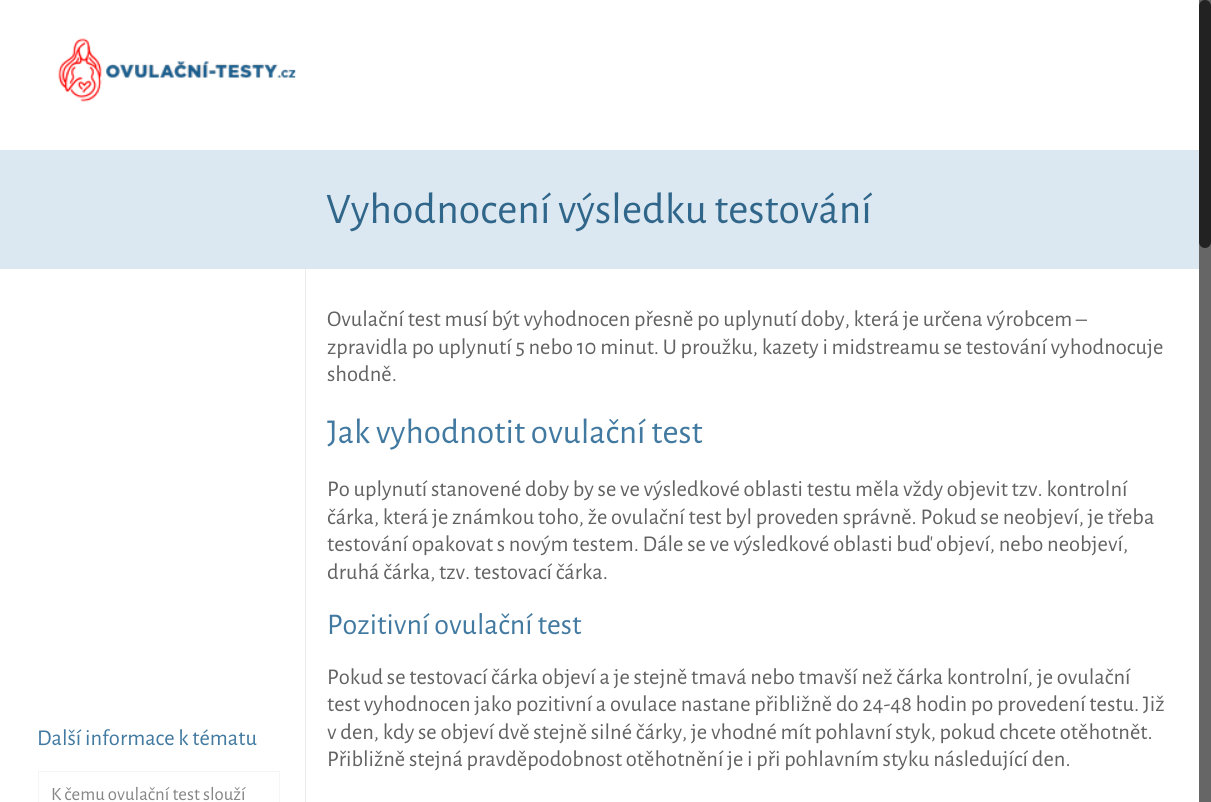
#include <cairo.h>
#include <math.h>
#include <stddef.h>

static cairo_t *ctx;

static void use_color(int r, int g, int b) {
    cairo_set_source_rgb(ctx, r / 255.0, g / 255.0, b / 255.0);
}

static void round_rect(double x, double y, double w, double h, double r) {
    cairo_new_sub_path(ctx);
    cairo_arc(ctx, x + w - r, y + h - r, r, 0, M_PI / 2);
    cairo_arc(ctx, x + r, y + h - r, r, M_PI / 2, M_PI);
    cairo_arc(ctx, x + r, y + r, r, M_PI, 1.5 * M_PI);
    cairo_arc(ctx, x + w - r, y + r, r, 1.5 * M_PI, 2 * M_PI);
    cairo_close_path(ctx);
}

static void picture(const char *path, double x, double y, double w, double h) {
    cairo_surface_t *image = cairo_image_surface_create_from_png(path);
    cairo_save(ctx);
    cairo_set_source_surface(ctx, image, x, y);
    cairo_rectangle(ctx, x, y, w, h);
    cairo_fill(ctx);
    cairo_restore(ctx);
    cairo_surface_destroy(image);
}

int main(void) {
    cairo_surface_t *surface = cairo_image_surface_create(CAIRO_FORMAT_RGB24, 1211, 802);
    ctx = cairo_create(surface);
    cairo_font_options_t *options = cairo_font_options_create();
    cairo_font_options_set_hint_metrics(options, CAIRO_HINT_METRICS_OFF);
    cairo_font_options_set_hint_style(options, CAIRO_HINT_STYLE_NONE);
    cairo_set_font_options(ctx, options);
    cairo_set_miter_limit(ctx, 4);
    use_color(255, 255, 255);
    cairo_paint(ctx);
    picture("img1.png", 58, 38, 238, 64);
    use_color(219, 232, 241);
    cairo_rectangle(ctx, 0, 150, 1199, 119);
    cairo_fill(ctx);
    cairo_select_font_face(ctx, "Alegreya Sans", CAIRO_FONT_SLANT_NORMAL, CAIRO_FONT_WEIGHT_NORMAL);
    cairo_set_font_size(ctx, 43.75);
    use_color(49, 102, 139);
    cairo_move_to(ctx, 326, 223);
    cairo_show_text(ctx, "Vyhodnocení výsledku testování");
    use_color(235, 235, 235);
    cairo_rectangle(ctx, 305, 269, 1, 533);
    cairo_fill(ctx);
    cairo_set_font_size(ctx, 22.5);
    use_color(65, 121, 160);
    cairo_move_to(ctx, 37, 745);
    cairo_show_text(ctx, "Další informace k tématu");
    cairo_rectangle(ctx, 38.5, 771.5, 241, 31);
    use_color(245, 245, 245);
    cairo_set_line_width(ctx, 1);
    cairo_stroke(ctx);
    cairo_set_font_size(ctx, 18.75);
    use_color(133, 133, 133);
    cairo_move_to(ctx, 51, 800);
    cairo_show_text(ctx, "K čemu ovulační test slouží");
    cairo_set_font_size(ctx, 22.5);
    use_color(98, 98, 98);
    cairo_move_to(ctx, 327, 326);
    cairo_show_text(ctx, "Ovulační test musí být vyhodnocen přesně po uplynutí doby, která je určena výrobcem –");
    cairo_move_to(ctx, 327, 354);
    cairo_show_text(ctx, "zpravidla po uplynutí 5 nebo 10 minut. U proužku, kazety i midstreamu se testování vyhodnocuje");
    cairo_move_to(ctx, 327, 381);
    cairo_show_text(ctx, "shodně.");
    cairo_set_font_size(ctx, 35);
    use_color(65, 121, 160);
    cairo_move_to(ctx, 327, 443);
    cairo_show_text(ctx, "Jak vyhodnotit ovulační test");
    cairo_set_font_size(ctx, 22.5);
    use_color(98, 98, 98);
    cairo_move_to(ctx, 327, 496);
    cairo_show_text(ctx, "Po uplynutí stanovené doby by se ve výsledkové oblasti testu měla vždy objevit tzv. kontrolní");
    cairo_move_to(ctx, 327, 524);
    cairo_show_text(ctx, "čárka, která je známkou toho, že ovulační test byl proveden správně. Pokud se neobjeví, je třeba");
    cairo_move_to(ctx, 327, 551);
    cairo_show_text(ctx, "testování opakovat s novým testem. Dále se ve výsledkové oblasti buď objeví, nebo neobjeví,");
    cairo_move_to(ctx, 327, 579);
    cairo_show_text(ctx, "druhá čárka, tzv. testovací čárka.");
    cairo_set_font_size(ctx, 30);
    use_color(65, 121, 160);
    cairo_move_to(ctx, 327, 634);
    cairo_show_text(ctx, "Pozitivní ovulační test");
    cairo_set_font_size(ctx, 22.5);
    use_color(98, 98, 98);
    cairo_move_to(ctx, 327, 684);
    cairo_show_text(ctx, "Pokud se testovací čárka objeví a je stejně tmavá nebo tmavší než čárka kontrolní, je ovulační");
    cairo_move_to(ctx, 327, 711);
    cairo_show_text(ctx, "test vyhodnocen jako pozitivní a ovulace nastane přibližně do 24-48 hodin po provedení testu. Již");
    cairo_move_to(ctx, 327, 739);
    cairo_show_text(ctx, "v den, kdy se objeví dvě stejně silné čárky, je vhodné mít pohlavní styk, pokud chcete otěhotnět.");
    cairo_move_to(ctx, 327, 766);
    cairo_show_text(ctx, "Přibližně stejná pravděpodobnost otěhotnění je i při pohlavním styku následující den.");
    use_color(102, 102, 102);
    cairo_rectangle(ctx, 1199, 0, 12, 802);
    cairo_fill(ctx);
    use_color(34, 34, 34);
    round_rect(1199, 0, 12, 248, 6);
    cairo_fill(ctx);
    cairo_surface_write_to_png(surface, "result.png");
    cairo_font_options_destroy(options);
    cairo_destroy(ctx);
    cairo_surface_destroy(surface);
    return 0;
}
